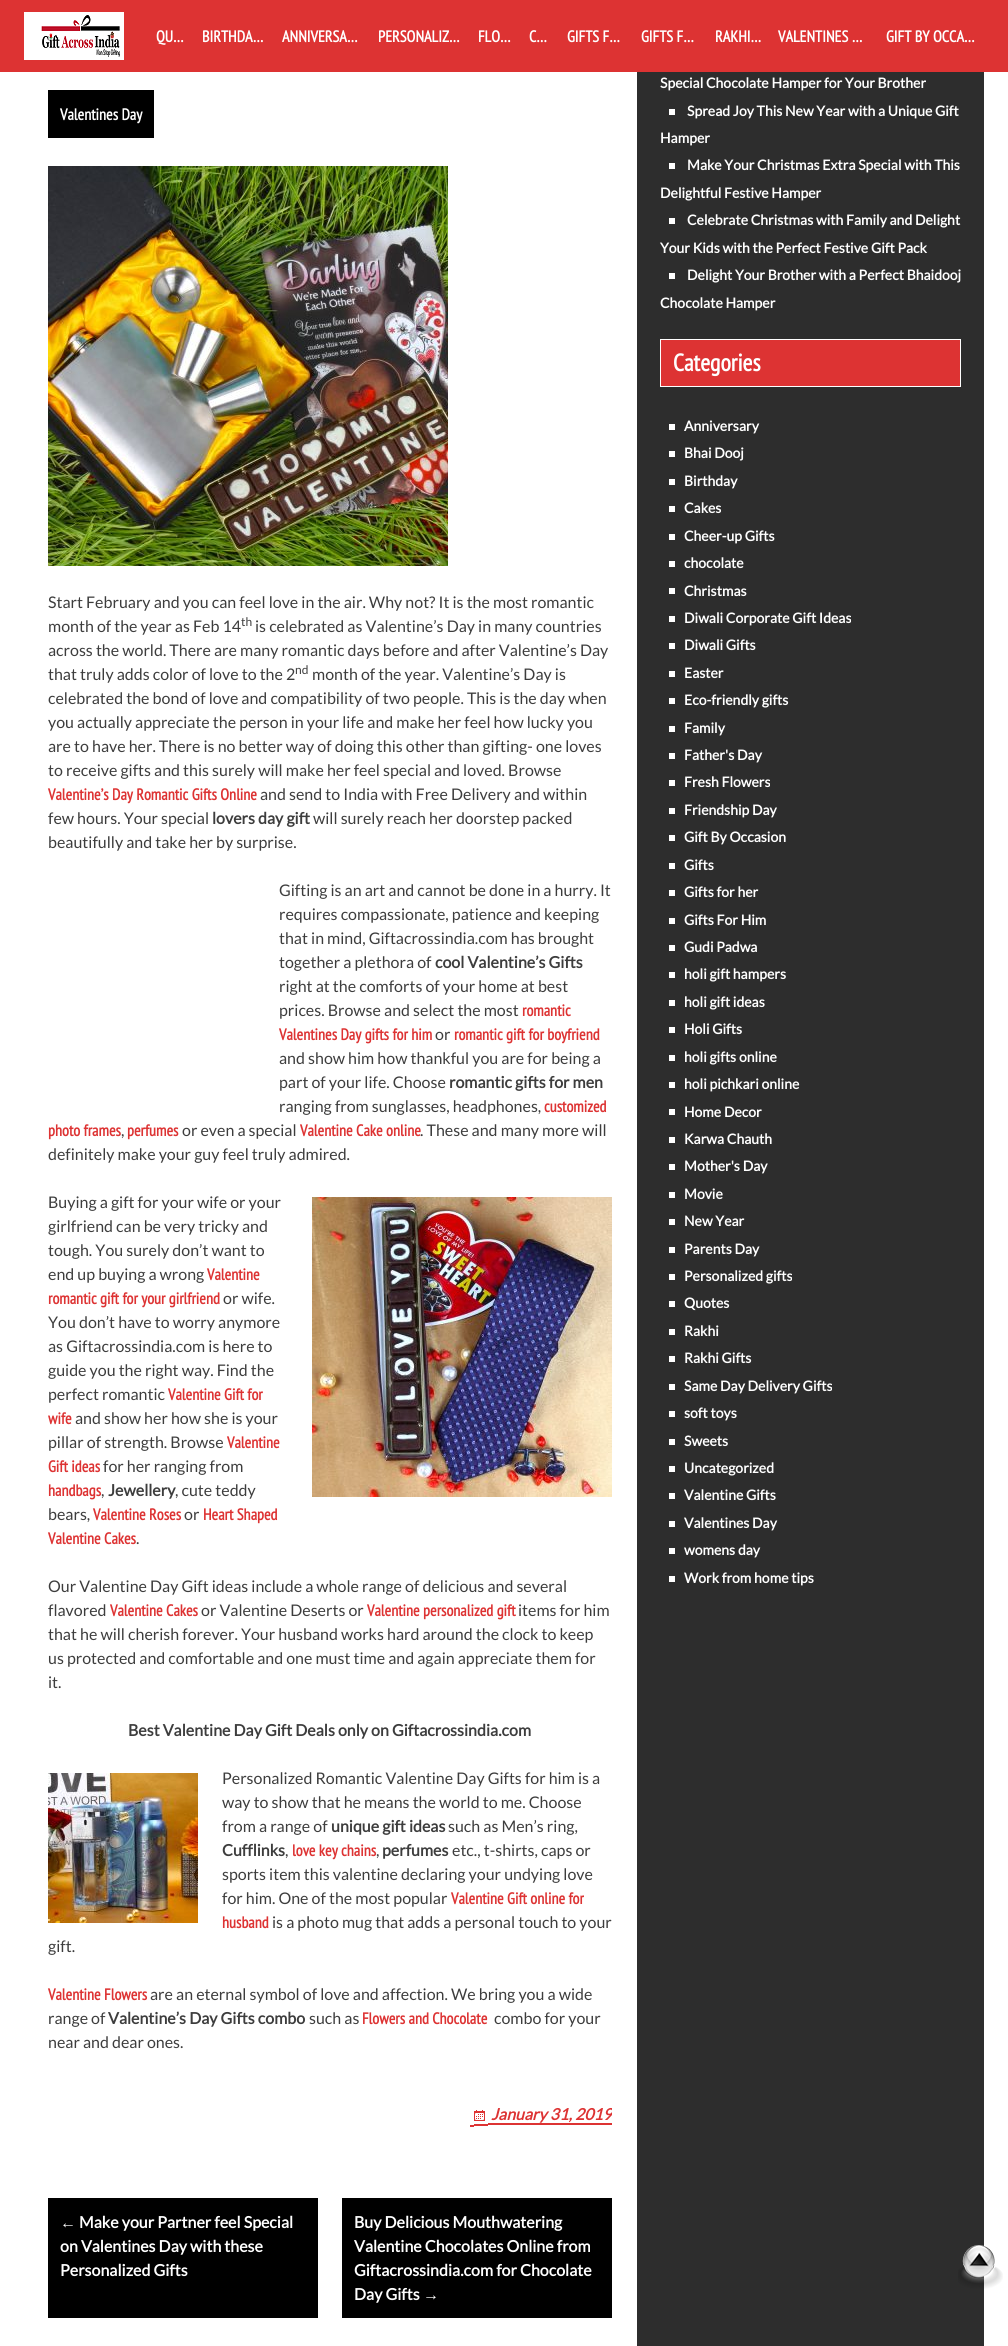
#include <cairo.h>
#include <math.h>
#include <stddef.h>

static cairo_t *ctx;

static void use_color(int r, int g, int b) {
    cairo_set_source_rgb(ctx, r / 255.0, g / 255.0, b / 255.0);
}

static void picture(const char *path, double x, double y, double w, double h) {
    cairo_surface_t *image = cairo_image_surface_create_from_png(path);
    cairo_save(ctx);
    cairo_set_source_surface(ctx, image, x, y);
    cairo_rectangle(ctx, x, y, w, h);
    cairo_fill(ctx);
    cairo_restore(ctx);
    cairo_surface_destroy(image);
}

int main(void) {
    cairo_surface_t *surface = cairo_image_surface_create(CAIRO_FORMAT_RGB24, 1008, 2346);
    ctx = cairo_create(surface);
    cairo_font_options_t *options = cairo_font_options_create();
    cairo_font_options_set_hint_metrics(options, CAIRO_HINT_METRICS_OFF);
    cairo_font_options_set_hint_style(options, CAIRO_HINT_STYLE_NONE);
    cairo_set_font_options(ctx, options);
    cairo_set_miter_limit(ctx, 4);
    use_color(255, 255, 255);
    cairo_paint(ctx);
    use_color(221, 51, 51);
    cairo_rectangle(ctx, 0, 0, 1008, 72);
    cairo_fill(ctx);
    picture("img1.png", 24, 12, 100, 48);
    cairo_select_font_face(ctx, "PT Sans Narrow", CAIRO_FONT_SLANT_NORMAL, CAIRO_FONT_WEIGHT_BOLD);
    cairo_set_font_size(ctx, 16);
    use_color(255, 255, 255);
    cairo_move_to(ctx, 156, 42);
    cairo_show_text(ctx, "QU…");
    cairo_move_to(ctx, 202, 42);
    cairo_show_text(ctx, "BIRTHDA…");
    cairo_move_to(ctx, 282, 42);
    cairo_show_text(ctx, "ANNIVERSA…");
    cairo_move_to(ctx, 378, 42);
    cairo_show_text(ctx, "PERSONALIZ…");
    cairo_move_to(ctx, 478, 42);
    cairo_show_text(ctx, "FLO…");
    cairo_move_to(ctx, 529, 42);
    cairo_show_text(ctx, "C…");
    cairo_move_to(ctx, 567, 42);
    cairo_show_text(ctx, "GIFTS F…");
    cairo_move_to(ctx, 641, 42);
    cairo_show_text(ctx, "GIFTS F…");
    cairo_move_to(ctx, 715, 42);
    cairo_show_text(ctx, "RAKHI…");
    cairo_move_to(ctx, 778, 42);
    cairo_show_text(ctx, "VALENTINES …");
    cairo_move_to(ctx, 886, 42);
    cairo_show_text(ctx, "GIFT BY OCCA…");
    use_color(0, 0, 0);
    cairo_rectangle(ctx, 48, 90, 106, 48);
    cairo_fill(ctx);
    use_color(255, 255, 255);
    cairo_move_to(ctx, 60, 120);
    cairo_show_text(ctx, "Valentines Day");
    picture("img2.png", 48, 166, 400, 400);
    cairo_select_font_face(ctx, "Lato", CAIRO_FONT_SLANT_NORMAL, CAIRO_FONT_WEIGHT_NORMAL);
    use_color(61, 61, 61);
    cairo_move_to(ctx, 48, 608);
    cairo_show_text(ctx, "Start February and you can feel love in the air. Why not? It is the most romantic");
    cairo_move_to(ctx, 48, 632);
    cairo_show_text(ctx, "month of the year as Feb 14");
    cairo_set_font_size(ctx, 12);
    cairo_move_to(ctx, 241, 626);
    cairo_show_text(ctx, "th");
    cairo_set_font_size(ctx, 16);
    cairo_move_to(ctx, 255, 632);
    cairo_show_text(ctx, "is celebrated as Valentine’s Day in many countries");
    cairo_move_to(ctx, 48, 656);
    cairo_show_text(ctx, "across the world. There are many romantic days before and after Valentine’s Day");
    cairo_move_to(ctx, 48, 680);
    cairo_show_text(ctx, "that truly adds color of love to the 2");
    cairo_set_font_size(ctx, 12);
    cairo_move_to(ctx, 295, 674);
    cairo_show_text(ctx, "nd");
    cairo_set_font_size(ctx, 16);
    cairo_move_to(ctx, 312, 680);
    cairo_show_text(ctx, "month of the year. Valentine’s Day is");
    cairo_move_to(ctx, 48, 704);
    cairo_show_text(ctx, "celebrated the bond of love and compatibility of two people. This is the day when");
    cairo_move_to(ctx, 48, 728);
    cairo_show_text(ctx, "you actually appreciate the person in your life and make her feel how lucky you");
    cairo_move_to(ctx, 48, 752);
    cairo_show_text(ctx, "are to have her. There is no better way of doing this other than gifting- one loves");
    cairo_move_to(ctx, 48, 776);
    cairo_show_text(ctx, "to receive gifts and this surely will make her feel special and loved. Browse");
    cairo_select_font_face(ctx, "PT Sans Narrow", CAIRO_FONT_SLANT_NORMAL, CAIRO_FONT_WEIGHT_BOLD);
    use_color(221, 51, 51);
    cairo_move_to(ctx, 48, 800);
    cairo_show_text(ctx, "Valentine’s Day Romantic Gifts Online");
    cairo_select_font_face(ctx, "Lato", CAIRO_FONT_SLANT_NORMAL, CAIRO_FONT_WEIGHT_NORMAL);
    use_color(61, 61, 61);
    cairo_move_to(ctx, 260, 800);
    cairo_show_text(ctx, "and send to India with Free Delivery and within");
    cairo_move_to(ctx, 48, 824);
    cairo_show_text(ctx, "few hours. Your special");
    cairo_select_font_face(ctx, "Lato", CAIRO_FONT_SLANT_NORMAL, CAIRO_FONT_WEIGHT_BOLD);
    cairo_move_to(ctx, 212, 824);
    cairo_show_text(ctx, "lovers day gift");
    cairo_select_font_face(ctx, "Lato", CAIRO_FONT_SLANT_NORMAL, CAIRO_FONT_WEIGHT_NORMAL);
    cairo_move_to(ctx, 313, 824);
    cairo_show_text(ctx, "will surely reach her doorstep packed");
    cairo_move_to(ctx, 48, 848);
    cairo_show_text(ctx, "beautifully and take her by surprise.");
    cairo_move_to(ctx, 279, 896);
    cairo_show_text(ctx, "Gifting is an art and cannot be done in a hurry. It");
    cairo_move_to(ctx, 279, 920);
    cairo_show_text(ctx, "requires compassionate, patience and keeping");
    cairo_move_to(ctx, 279, 944);
    cairo_show_text(ctx, "that in mind, Giftacrossindia.com has brought");
    cairo_move_to(ctx, 279, 968);
    cairo_show_text(ctx, "together a plethora of");
    cairo_select_font_face(ctx, "Lato", CAIRO_FONT_SLANT_NORMAL, CAIRO_FONT_WEIGHT_BOLD);
    cairo_move_to(ctx, 435, 968);
    cairo_show_text(ctx, "cool Valentine’s Gifts");
    cairo_select_font_face(ctx, "Lato", CAIRO_FONT_SLANT_NORMAL, CAIRO_FONT_WEIGHT_NORMAL);
    cairo_move_to(ctx, 279, 992);
    cairo_show_text(ctx, "right at the comforts of your home at best");
    cairo_move_to(ctx, 279, 1016);
    cairo_show_text(ctx, "prices. Browse and select the most");
    cairo_select_font_face(ctx, "PT Sans Narrow", CAIRO_FONT_SLANT_NORMAL, CAIRO_FONT_WEIGHT_BOLD);
    use_color(221, 51, 51);
    cairo_move_to(ctx, 522, 1016);
    cairo_show_text(ctx, "romantic");
    cairo_move_to(ctx, 279, 1040);
    cairo_show_text(ctx, "Valentines Day gifts for him");
    cairo_select_font_face(ctx, "Lato", CAIRO_FONT_SLANT_NORMAL, CAIRO_FONT_WEIGHT_NORMAL);
    use_color(61, 61, 61);
    cairo_move_to(ctx, 435, 1040);
    cairo_show_text(ctx, "or");
    cairo_select_font_face(ctx, "PT Sans Narrow", CAIRO_FONT_SLANT_NORMAL, CAIRO_FONT_WEIGHT_BOLD);
    use_color(221, 51, 51);
    cairo_move_to(ctx, 454, 1040);
    cairo_show_text(ctx, "romantic gift for boyfriend");
    cairo_select_font_face(ctx, "Lato", CAIRO_FONT_SLANT_NORMAL, CAIRO_FONT_WEIGHT_NORMAL);
    use_color(61, 61, 61);
    cairo_move_to(ctx, 279, 1064);
    cairo_show_text(ctx, "and show him how thankful you are for being a");
    cairo_move_to(ctx, 279, 1088);
    cairo_show_text(ctx, "part of your life. Choose");
    cairo_select_font_face(ctx, "Lato", CAIRO_FONT_SLANT_NORMAL, CAIRO_FONT_WEIGHT_BOLD);
    cairo_move_to(ctx, 449, 1088);
    cairo_show_text(ctx, "romantic gifts for men");
    cairo_select_font_face(ctx, "Lato", CAIRO_FONT_SLANT_NORMAL, CAIRO_FONT_WEIGHT_NORMAL);
    cairo_move_to(ctx, 279, 1112);
    cairo_show_text(ctx, "ranging from sunglasses, headphones,");
    cairo_select_font_face(ctx, "PT Sans Narrow", CAIRO_FONT_SLANT_NORMAL, CAIRO_FONT_WEIGHT_BOLD);
    use_color(221, 51, 51);
    cairo_move_to(ctx, 544, 1112);
    cairo_show_text(ctx, "customized");
    cairo_move_to(ctx, 48, 1136);
    cairo_show_text(ctx, "photo frames");
    cairo_select_font_face(ctx, "Lato", CAIRO_FONT_SLANT_NORMAL, CAIRO_FONT_WEIGHT_NORMAL);
    use_color(61, 61, 61);
    cairo_move_to(ctx, 121, 1136);
    cairo_show_text(ctx, ",");
    cairo_select_font_face(ctx, "PT Sans Narrow", CAIRO_FONT_SLANT_NORMAL, CAIRO_FONT_WEIGHT_BOLD);
    use_color(221, 51, 51);
    cairo_move_to(ctx, 127, 1136);
    cairo_show_text(ctx, "perfumes");
    cairo_select_font_face(ctx, "Lato", CAIRO_FONT_SLANT_NORMAL, CAIRO_FONT_WEIGHT_NORMAL);
    use_color(61, 61, 61);
    cairo_move_to(ctx, 182, 1136);
    cairo_show_text(ctx, "or even a special");
    cairo_select_font_face(ctx, "PT Sans Narrow", CAIRO_FONT_SLANT_NORMAL, CAIRO_FONT_WEIGHT_BOLD);
    use_color(221, 51, 51);
    cairo_move_to(ctx, 300, 1136);
    cairo_show_text(ctx, "Valentine Cake online");
    cairo_select_font_face(ctx, "Lato", CAIRO_FONT_SLANT_NORMAL, CAIRO_FONT_WEIGHT_NORMAL);
    use_color(61, 61, 61);
    cairo_move_to(ctx, 420, 1136);
    cairo_show_text(ctx, ". These and many more will");
    cairo_move_to(ctx, 48, 1160);
    cairo_show_text(ctx, "definitely make your guy feel truly admired.");
    cairo_move_to(ctx, 48, 1208);
    cairo_show_text(ctx, "Buying a gift for your wife or your");
    picture("img3.png", 312, 1197, 300, 300);
    cairo_move_to(ctx, 48, 1232);
    cairo_show_text(ctx, "girlfriend can be very tricky and");
    cairo_move_to(ctx, 48, 1256);
    cairo_show_text(ctx, "tough. You surely don’t want to");
    cairo_move_to(ctx, 48, 1280);
    cairo_show_text(ctx, "end up buying a wrong");
    cairo_select_font_face(ctx, "PT Sans Narrow", CAIRO_FONT_SLANT_NORMAL, CAIRO_FONT_WEIGHT_BOLD);
    use_color(221, 51, 51);
    cairo_move_to(ctx, 207, 1280);
    cairo_show_text(ctx, "Valentine");
    cairo_move_to(ctx, 48, 1304);
    cairo_show_text(ctx, "romantic gift for your girlfriend");
    cairo_select_font_face(ctx, "Lato", CAIRO_FONT_SLANT_NORMAL, CAIRO_FONT_WEIGHT_NORMAL);
    use_color(61, 61, 61);
    cairo_move_to(ctx, 223, 1304);
    cairo_show_text(ctx, "or wife.");
    cairo_move_to(ctx, 48, 1328);
    cairo_show_text(ctx, "You don’t have to worry anymore");
    cairo_move_to(ctx, 48, 1352);
    cairo_show_text(ctx, "as Giftacrossindia.com is here to");
    cairo_move_to(ctx, 48, 1376);
    cairo_show_text(ctx, "guide you the right way. Find the");
    cairo_move_to(ctx, 48, 1400);
    cairo_show_text(ctx, "perfect romantic");
    cairo_select_font_face(ctx, "PT Sans Narrow", CAIRO_FONT_SLANT_NORMAL, CAIRO_FONT_WEIGHT_BOLD);
    use_color(221, 51, 51);
    cairo_move_to(ctx, 168, 1400);
    cairo_show_text(ctx, "Valentine Gift for");
    cairo_move_to(ctx, 48, 1424);
    cairo_show_text(ctx, "wife");
    cairo_select_font_face(ctx, "Lato", CAIRO_FONT_SLANT_NORMAL, CAIRO_FONT_WEIGHT_NORMAL);
    use_color(61, 61, 61);
    cairo_move_to(ctx, 75, 1424);
    cairo_show_text(ctx, "and show her how she is your");
    cairo_move_to(ctx, 48, 1448);
    cairo_show_text(ctx, "pillar of strength. Browse");
    cairo_select_font_face(ctx, "PT Sans Narrow", CAIRO_FONT_SLANT_NORMAL, CAIRO_FONT_WEIGHT_BOLD);
    use_color(221, 51, 51);
    cairo_move_to(ctx, 227, 1448);
    cairo_show_text(ctx, "Valentine");
    cairo_move_to(ctx, 48, 1472);
    cairo_show_text(ctx, "Gift ideas");
    cairo_select_font_face(ctx, "Lato", CAIRO_FONT_SLANT_NORMAL, CAIRO_FONT_WEIGHT_NORMAL);
    use_color(61, 61, 61);
    cairo_move_to(ctx, 103, 1472);
    cairo_show_text(ctx, "for her ranging from");
    cairo_select_font_face(ctx, "PT Sans Narrow", CAIRO_FONT_SLANT_NORMAL, CAIRO_FONT_WEIGHT_BOLD);
    use_color(221, 51, 51);
    cairo_move_to(ctx, 48, 1496);
    cairo_show_text(ctx, "handbags");
    cairo_select_font_face(ctx, "Lato", CAIRO_FONT_SLANT_NORMAL, CAIRO_FONT_WEIGHT_NORMAL);
    use_color(61, 61, 61);
    cairo_move_to(ctx, 101, 1496);
    cairo_show_text(ctx, ",");
    cairo_select_font_face(ctx, "Lato", CAIRO_FONT_SLANT_NORMAL, CAIRO_FONT_WEIGHT_BOLD);
    cairo_move_to(ctx, 108, 1496);
    cairo_show_text(ctx, "Jewellery");
    cairo_select_font_face(ctx, "Lato", CAIRO_FONT_SLANT_NORMAL, CAIRO_FONT_WEIGHT_NORMAL);
    cairo_move_to(ctx, 175, 1496);
    cairo_show_text(ctx, ", cute teddy");
    cairo_move_to(ctx, 48, 1520);
    cairo_show_text(ctx, "bears,");
    cairo_select_font_face(ctx, "PT Sans Narrow", CAIRO_FONT_SLANT_NORMAL, CAIRO_FONT_WEIGHT_BOLD);
    use_color(221, 51, 51);
    cairo_move_to(ctx, 93, 1520);
    cairo_show_text(ctx, "Valentine Roses");
    cairo_select_font_face(ctx, "Lato", CAIRO_FONT_SLANT_NORMAL, CAIRO_FONT_WEIGHT_NORMAL);
    use_color(61, 61, 61);
    cairo_move_to(ctx, 184, 1520);
    cairo_show_text(ctx, "or");
    cairo_select_font_face(ctx, "PT Sans Narrow", CAIRO_FONT_SLANT_NORMAL, CAIRO_FONT_WEIGHT_BOLD);
    use_color(221, 51, 51);
    cairo_move_to(ctx, 203, 1520);
    cairo_show_text(ctx, "Heart Shaped");
    cairo_move_to(ctx, 48, 1544);
    cairo_show_text(ctx, "Valentine Cakes");
    cairo_select_font_face(ctx, "Lato", CAIRO_FONT_SLANT_NORMAL, CAIRO_FONT_WEIGHT_NORMAL);
    use_color(61, 61, 61);
    cairo_move_to(ctx, 136, 1544);
    cairo_show_text(ctx, ".");
    cairo_move_to(ctx, 48, 1592);
    cairo_show_text(ctx, "Our Valentine Day Gift ideas include a whole range of delicious and several");
    cairo_move_to(ctx, 48, 1616);
    cairo_show_text(ctx, "flavored");
    cairo_select_font_face(ctx, "PT Sans Narrow", CAIRO_FONT_SLANT_NORMAL, CAIRO_FONT_WEIGHT_BOLD);
    use_color(221, 51, 51);
    cairo_move_to(ctx, 110, 1616);
    cairo_show_text(ctx, "Valentine Cakes");
    cairo_select_font_face(ctx, "Lato", CAIRO_FONT_SLANT_NORMAL, CAIRO_FONT_WEIGHT_NORMAL);
    use_color(61, 61, 61);
    cairo_move_to(ctx, 201, 1616);
    cairo_show_text(ctx, "or Valentine Deserts or");
    cairo_select_font_face(ctx, "PT Sans Narrow", CAIRO_FONT_SLANT_NORMAL, CAIRO_FONT_WEIGHT_BOLD);
    use_color(221, 51, 51);
    cairo_move_to(ctx, 367, 1616);
    cairo_show_text(ctx, "Valentine personalized gift");
    cairo_select_font_face(ctx, "Lato", CAIRO_FONT_SLANT_NORMAL, CAIRO_FONT_WEIGHT_NORMAL);
    use_color(61, 61, 61);
    cairo_move_to(ctx, 518, 1616);
    cairo_show_text(ctx, "items for him");
    cairo_move_to(ctx, 48, 1640);
    cairo_show_text(ctx, "that he will cherish forever. Your husband works hard around the clock to keep");
    cairo_move_to(ctx, 48, 1664);
    cairo_show_text(ctx, "us protected and comfortable and one must time and again appreciate them for");
    cairo_move_to(ctx, 48, 1688);
    cairo_show_text(ctx, "it.");
    cairo_select_font_face(ctx, "Lato", CAIRO_FONT_SLANT_NORMAL, CAIRO_FONT_WEIGHT_BOLD);
    cairo_move_to(ctx, 128, 1736);
    cairo_show_text(ctx, "Best Valentine Day Gift Deals only on Giftacrossindia.com");
    picture("img4.png", 48, 1773, 150, 150);
    cairo_select_font_face(ctx, "Lato", CAIRO_FONT_SLANT_NORMAL, CAIRO_FONT_WEIGHT_NORMAL);
    cairo_move_to(ctx, 222, 1784);
    cairo_show_text(ctx, "Personalized Romantic Valentine Day Gifts for him is a");
    cairo_move_to(ctx, 222, 1808);
    cairo_show_text(ctx, "way to show that he means the world to me. Choose");
    cairo_move_to(ctx, 222, 1832);
    cairo_show_text(ctx, "from a range of");
    cairo_select_font_face(ctx, "Lato", CAIRO_FONT_SLANT_NORMAL, CAIRO_FONT_WEIGHT_BOLD);
    cairo_move_to(ctx, 331, 1832);
    cairo_show_text(ctx, "unique gift ideas");
    cairo_select_font_face(ctx, "Lato", CAIRO_FONT_SLANT_NORMAL, CAIRO_FONT_WEIGHT_NORMAL);
    cairo_move_to(ctx, 448, 1832);
    cairo_show_text(ctx, "such as Men’s ring,");
    cairo_select_font_face(ctx, "Lato", CAIRO_FONT_SLANT_NORMAL, CAIRO_FONT_WEIGHT_BOLD);
    cairo_move_to(ctx, 222, 1856);
    cairo_show_text(ctx, "Cufflinks");
    cairo_select_font_face(ctx, "Lato", CAIRO_FONT_SLANT_NORMAL, CAIRO_FONT_WEIGHT_NORMAL);
    cairo_move_to(ctx, 285, 1856);
    cairo_show_text(ctx, ",");
    cairo_select_font_face(ctx, "PT Sans Narrow", CAIRO_FONT_SLANT_NORMAL, CAIRO_FONT_WEIGHT_BOLD);
    use_color(221, 51, 51);
    cairo_move_to(ctx, 292, 1856);
    cairo_show_text(ctx, "love key chains");
    cairo_select_font_face(ctx, "Lato", CAIRO_FONT_SLANT_NORMAL, CAIRO_FONT_WEIGHT_NORMAL);
    use_color(61, 61, 61);
    cairo_move_to(ctx, 376, 1856);
    cairo_show_text(ctx, ",");
    cairo_select_font_face(ctx, "Lato", CAIRO_FONT_SLANT_NORMAL, CAIRO_FONT_WEIGHT_BOLD);
    cairo_move_to(ctx, 382, 1856);
    cairo_show_text(ctx, "perfumes");
    cairo_select_font_face(ctx, "Lato", CAIRO_FONT_SLANT_NORMAL, CAIRO_FONT_WEIGHT_NORMAL);
    cairo_move_to(ctx, 452, 1856);
    cairo_show_text(ctx, "etc., t-shirts, caps or");
    cairo_move_to(ctx, 222, 1880);
    cairo_show_text(ctx, "sports item this valentine declaring your undying love");
    cairo_move_to(ctx, 222, 1904);
    cairo_show_text(ctx, "for him. One of the most popular");
    cairo_select_font_face(ctx, "PT Sans Narrow", CAIRO_FONT_SLANT_NORMAL, CAIRO_FONT_WEIGHT_BOLD);
    use_color(221, 51, 51);
    cairo_move_to(ctx, 451, 1904);
    cairo_show_text(ctx, "Valentine Gift online for");
    cairo_move_to(ctx, 222, 1928);
    cairo_show_text(ctx, "husband");
    cairo_select_font_face(ctx, "Lato", CAIRO_FONT_SLANT_NORMAL, CAIRO_FONT_WEIGHT_NORMAL);
    use_color(61, 61, 61);
    cairo_move_to(ctx, 272, 1928);
    cairo_show_text(ctx, "is a photo mug that adds a personal touch to your");
    cairo_move_to(ctx, 48, 1952);
    cairo_show_text(ctx, "gift.");
    cairo_select_font_face(ctx, "PT Sans Narrow", CAIRO_FONT_SLANT_NORMAL, CAIRO_FONT_WEIGHT_BOLD);
    use_color(221, 51, 51);
    cairo_move_to(ctx, 48, 2000);
    cairo_show_text(ctx, "Valentine Flowers");
    cairo_select_font_face(ctx, "Lato", CAIRO_FONT_SLANT_NORMAL, CAIRO_FONT_WEIGHT_NORMAL);
    use_color(61, 61, 61);
    cairo_move_to(ctx, 150, 2000);
    cairo_show_text(ctx, "are an eternal symbol of love and affection. We bring you a wide");
    cairo_move_to(ctx, 48, 2024);
    cairo_show_text(ctx, "range of");
    cairo_select_font_face(ctx, "Lato", CAIRO_FONT_SLANT_NORMAL, CAIRO_FONT_WEIGHT_BOLD);
    cairo_move_to(ctx, 108, 2024);
    cairo_show_text(ctx, "Valentine’s Day Gifts combo");
    cairo_select_font_face(ctx, "Lato", CAIRO_FONT_SLANT_NORMAL, CAIRO_FONT_WEIGHT_NORMAL);
    cairo_move_to(ctx, 309, 2024);
    cairo_show_text(ctx, "such as");
    cairo_select_font_face(ctx, "PT Sans Narrow", CAIRO_FONT_SLANT_NORMAL, CAIRO_FONT_WEIGHT_BOLD);
    use_color(221, 51, 51);
    cairo_move_to(ctx, 362, 2024);
    cairo_show_text(ctx, "Flowers and Chocolate");
    cairo_select_font_face(ctx, "Lato", CAIRO_FONT_SLANT_NORMAL, CAIRO_FONT_WEIGHT_NORMAL);
    use_color(61, 61, 61);
    cairo_move_to(ctx, 494, 2024);
    cairo_show_text(ctx, "combo for your");
    cairo_move_to(ctx, 48, 2048);
    cairo_show_text(ctx, "near and dear ones.");
    use_color(221, 51, 51);
    cairo_rectangle(ctx, 472, 2124, 16, 2);
    cairo_fill(ctx);
    cairo_rectangle(ctx, 488, 2123, 124, 2);
    cairo_fill(ctx);
    cairo_rectangle(ctx, 470, 2125, 4, 2);
    cairo_fill(ctx);
    picture("img5.png", 474, 2110, 11, 11);
    cairo_save(ctx);
    cairo_rectangle(ctx, 48, 0, 564, 2150);
    cairo_clip(ctx);
    cairo_select_font_face(ctx, "Lato", CAIRO_FONT_SLANT_ITALIC, CAIRO_FONT_WEIGHT_BOLD);
    cairo_move_to(ctx, 491, 2120);
    cairo_show_text(ctx, "January 31, 2019");
    cairo_restore(ctx);
    use_color(255, 255, 255);
    cairo_rectangle(ctx, 470, 2124, 4, 1);
    cairo_fill(ctx);
    use_color(0, 0, 0);
    cairo_rectangle(ctx, 48, 2198, 270, 120);
    cairo_fill(ctx);
    cairo_select_font_face(ctx, "Liberation Sans", CAIRO_FONT_SLANT_NORMAL, CAIRO_FONT_WEIGHT_BOLD);
    use_color(255, 255, 255);
    cairo_move_to(ctx, 60, 2228);
    cairo_show_text(ctx, "←");
    cairo_select_font_face(ctx, "Lato", CAIRO_FONT_SLANT_NORMAL, CAIRO_FONT_WEIGHT_BOLD);
    cairo_move_to(ctx, 79, 2228);
    cairo_show_text(ctx, "Make your Partner feel Special");
    cairo_move_to(ctx, 60, 2252);
    cairo_show_text(ctx, "on Valentines Day with these");
    cairo_move_to(ctx, 60, 2276);
    cairo_show_text(ctx, "Personalized Gifts");
    use_color(0, 0, 0);
    cairo_rectangle(ctx, 342, 2198, 270, 120);
    cairo_fill(ctx);
    use_color(255, 255, 255);
    cairo_move_to(ctx, 354, 2228);
    cairo_show_text(ctx, "Buy Delicious Mouthwatering");
    cairo_move_to(ctx, 354, 2252);
    cairo_show_text(ctx, "Valentine Chocolates Online from");
    cairo_move_to(ctx, 354, 2276);
    cairo_show_text(ctx, "Giftacrossindia.com for Chocolate");
    cairo_move_to(ctx, 354, 2300);
    cairo_show_text(ctx, "Day Gifts");
    cairo_select_font_face(ctx, "Liberation Sans", CAIRO_FONT_SLANT_NORMAL, CAIRO_FONT_WEIGHT_BOLD);
    cairo_move_to(ctx, 423, 2300);
    cairo_show_text(ctx, "→");
    use_color(45, 45, 45);
    cairo_rectangle(ctx, 637, 72, 347, 2274);
    cairo_fill(ctx);
    cairo_select_font_face(ctx, "Lato", CAIRO_FONT_SLANT_NORMAL, CAIRO_FONT_WEIGHT_BOLD);
    cairo_set_font_size(ctx, 14);
    use_color(255, 255, 255);
    cairo_move_to(ctx, 660, 88);
    cairo_show_text(ctx, "Special Chocolate Hamper for Your Brother");
    cairo_rectangle(ctx, 669, 109, 6, 6);
    cairo_fill(ctx);
    cairo_move_to(ctx, 687, 116);
    cairo_show_text(ctx, "Spread Joy This New Year with a Unique Gift");
    cairo_move_to(ctx, 660, 143);
    cairo_show_text(ctx, "Hamper");
    cairo_rectangle(ctx, 669, 163, 6, 6);
    cairo_fill(ctx);
    cairo_move_to(ctx, 687, 170);
    cairo_show_text(ctx, "Make Your Christmas Extra Special with This");
    cairo_move_to(ctx, 660, 198);
    cairo_show_text(ctx, "Delightful Festive Hamper");
    cairo_rectangle(ctx, 669, 218, 6, 6);
    cairo_fill(ctx);
    cairo_move_to(ctx, 687, 225);
    cairo_show_text(ctx, "Celebrate Christmas with Family and Delight");
    cairo_move_to(ctx, 660, 253);
    cairo_show_text(ctx, "Your Kids with the Perfect Festive Gift Pack");
    cairo_rectangle(ctx, 669, 273, 6, 6);
    cairo_fill(ctx);
    cairo_move_to(ctx, 687, 280);
    cairo_show_text(ctx, "Delight Your Brother with a Perfect Bhaidooj");
    cairo_move_to(ctx, 660, 308);
    cairo_show_text(ctx, "Chocolate Hamper");
    use_color(221, 51, 51);
    cairo_rectangle(ctx, 660.5, 339.5, 300, 47);
    cairo_fill_preserve(ctx);
    use_color(255, 255, 255);
    cairo_set_line_width(ctx, 1);
    cairo_stroke(ctx);
    cairo_select_font_face(ctx, "PT Sans Narrow", CAIRO_FONT_SLANT_NORMAL, CAIRO_FONT_WEIGHT_BOLD);
    cairo_set_font_size(ctx, 24);
    cairo_move_to(ctx, 673, 371);
    cairo_show_text(ctx, "Categories");
    cairo_rectangle(ctx, 669, 424, 6, 6);
    cairo_fill(ctx);
    cairo_select_font_face(ctx, "Lato", CAIRO_FONT_SLANT_NORMAL, CAIRO_FONT_WEIGHT_BOLD);
    cairo_set_font_size(ctx, 14);
    cairo_move_to(ctx, 684, 431);
    cairo_show_text(ctx, "Anniversary");
    cairo_rectangle(ctx, 669, 451, 6, 6);
    cairo_fill(ctx);
    cairo_move_to(ctx, 684, 458);
    cairo_show_text(ctx, "Bhai Dooj");
    cairo_rectangle(ctx, 669, 479, 6, 6);
    cairo_fill(ctx);
    cairo_move_to(ctx, 684, 486);
    cairo_show_text(ctx, "Birthday");
    cairo_rectangle(ctx, 669, 506, 6, 6);
    cairo_fill(ctx);
    cairo_move_to(ctx, 684, 513);
    cairo_show_text(ctx, "Cakes");
    cairo_rectangle(ctx, 669, 534, 6, 6);
    cairo_fill(ctx);
    cairo_move_to(ctx, 684, 541);
    cairo_show_text(ctx, "Cheer-up Gifts");
    cairo_rectangle(ctx, 669, 561, 6, 6);
    cairo_fill(ctx);
    cairo_move_to(ctx, 684, 568);
    cairo_show_text(ctx, "chocolate");
    cairo_rectangle(ctx, 669, 588, 6, 6);
    cairo_fill(ctx);
    cairo_move_to(ctx, 684, 596);
    cairo_show_text(ctx, "Christmas");
    cairo_rectangle(ctx, 669, 616, 6, 6);
    cairo_fill(ctx);
    cairo_move_to(ctx, 684, 623);
    cairo_show_text(ctx, "Diwali Corporate Gift Ideas");
    cairo_rectangle(ctx, 669, 643, 6, 6);
    cairo_fill(ctx);
    cairo_move_to(ctx, 684, 650);
    cairo_show_text(ctx, "Diwali Gifts");
    cairo_rectangle(ctx, 669, 671, 6, 6);
    cairo_fill(ctx);
    cairo_move_to(ctx, 684, 678);
    cairo_show_text(ctx, "Easter");
    cairo_rectangle(ctx, 669, 698, 6, 6);
    cairo_fill(ctx);
    cairo_move_to(ctx, 684, 705);
    cairo_show_text(ctx, "Eco-friendly gifts");
    cairo_rectangle(ctx, 669, 726, 6, 6);
    cairo_fill(ctx);
    cairo_move_to(ctx, 684, 733);
    cairo_show_text(ctx, "Family");
    cairo_rectangle(ctx, 669, 753, 6, 6);
    cairo_fill(ctx);
    cairo_move_to(ctx, 684, 760);
    cairo_show_text(ctx, "Father's Day");
    cairo_rectangle(ctx, 669, 780, 6, 6);
    cairo_fill(ctx);
    cairo_move_to(ctx, 684, 787);
    cairo_show_text(ctx, "Fresh Flowers");
    cairo_rectangle(ctx, 669, 808, 6, 6);
    cairo_fill(ctx);
    cairo_move_to(ctx, 684, 815);
    cairo_show_text(ctx, "Friendship Day");
    cairo_rectangle(ctx, 669, 835, 6, 6);
    cairo_fill(ctx);
    cairo_move_to(ctx, 684, 842);
    cairo_show_text(ctx, "Gift By Occasion");
    cairo_rectangle(ctx, 669, 863, 6, 6);
    cairo_fill(ctx);
    cairo_move_to(ctx, 684, 870);
    cairo_show_text(ctx, "Gifts");
    cairo_rectangle(ctx, 669, 890, 6, 6);
    cairo_fill(ctx);
    cairo_move_to(ctx, 684, 897);
    cairo_show_text(ctx, "Gifts for her");
    cairo_rectangle(ctx, 669, 918, 6, 6);
    cairo_fill(ctx);
    cairo_move_to(ctx, 684, 925);
    cairo_show_text(ctx, "Gifts For Him");
    cairo_rectangle(ctx, 669, 945, 6, 6);
    cairo_fill(ctx);
    cairo_move_to(ctx, 684, 952);
    cairo_show_text(ctx, "Gudi Padwa");
    cairo_rectangle(ctx, 669, 972, 6, 6);
    cairo_fill(ctx);
    cairo_move_to(ctx, 684, 979);
    cairo_show_text(ctx, "holi gift hampers");
    cairo_rectangle(ctx, 669, 1000, 6, 6);
    cairo_fill(ctx);
    cairo_move_to(ctx, 684, 1007);
    cairo_show_text(ctx, "holi gift ideas");
    cairo_rectangle(ctx, 669, 1027, 6, 6);
    cairo_fill(ctx);
    cairo_move_to(ctx, 684, 1034);
    cairo_show_text(ctx, "Holi Gifts");
    cairo_rectangle(ctx, 669, 1055, 6, 6);
    cairo_fill(ctx);
    cairo_move_to(ctx, 684, 1062);
    cairo_show_text(ctx, "holi gifts online");
    cairo_rectangle(ctx, 669, 1082, 6, 6);
    cairo_fill(ctx);
    cairo_move_to(ctx, 684, 1089);
    cairo_show_text(ctx, "holi pichkari online");
    cairo_rectangle(ctx, 669, 1109, 6, 6);
    cairo_fill(ctx);
    cairo_move_to(ctx, 684, 1117);
    cairo_show_text(ctx, "Home Decor");
    cairo_rectangle(ctx, 669, 1137, 6, 6);
    cairo_fill(ctx);
    cairo_move_to(ctx, 684, 1144);
    cairo_show_text(ctx, "Karwa Chauth");
    cairo_rectangle(ctx, 669, 1164, 6, 6);
    cairo_fill(ctx);
    cairo_move_to(ctx, 684, 1171);
    cairo_show_text(ctx, "Mother's Day");
    cairo_rectangle(ctx, 669, 1192, 6, 6);
    cairo_fill(ctx);
    cairo_move_to(ctx, 684, 1199);
    cairo_show_text(ctx, "Movie");
    cairo_rectangle(ctx, 669, 1219, 6, 6);
    cairo_fill(ctx);
    cairo_move_to(ctx, 684, 1226);
    cairo_show_text(ctx, "New Year");
    cairo_rectangle(ctx, 669, 1247, 6, 6);
    cairo_fill(ctx);
    cairo_move_to(ctx, 684, 1254);
    cairo_show_text(ctx, "Parents Day");
    cairo_rectangle(ctx, 669, 1274, 6, 6);
    cairo_fill(ctx);
    cairo_move_to(ctx, 684, 1281);
    cairo_show_text(ctx, "Personalized gifts");
    cairo_rectangle(ctx, 669, 1301, 6, 6);
    cairo_fill(ctx);
    cairo_move_to(ctx, 684, 1308);
    cairo_show_text(ctx, "Quotes");
    cairo_rectangle(ctx, 669, 1329, 6, 6);
    cairo_fill(ctx);
    cairo_move_to(ctx, 684, 1336);
    cairo_show_text(ctx, "Rakhi");
    cairo_rectangle(ctx, 669, 1356, 6, 6);
    cairo_fill(ctx);
    cairo_move_to(ctx, 684, 1363);
    cairo_show_text(ctx, "Rakhi Gifts");
    cairo_rectangle(ctx, 669, 1384, 6, 6);
    cairo_fill(ctx);
    cairo_move_to(ctx, 684, 1391);
    cairo_show_text(ctx, "Same Day Delivery Gifts");
    cairo_rectangle(ctx, 669, 1411, 6, 6);
    cairo_fill(ctx);
    cairo_move_to(ctx, 684, 1418);
    cairo_show_text(ctx, "soft toys");
    cairo_rectangle(ctx, 669, 1439, 6, 6);
    cairo_fill(ctx);
    cairo_move_to(ctx, 684, 1446);
    cairo_show_text(ctx, "Sweets");
    cairo_rectangle(ctx, 669, 1466, 6, 6);
    cairo_fill(ctx);
    cairo_move_to(ctx, 684, 1473);
    cairo_show_text(ctx, "Uncategorized");
    cairo_rectangle(ctx, 669, 1493, 6, 6);
    cairo_fill(ctx);
    cairo_move_to(ctx, 684, 1500);
    cairo_show_text(ctx, "Valentine Gifts");
    cairo_rectangle(ctx, 669, 1521, 6, 6);
    cairo_fill(ctx);
    cairo_move_to(ctx, 684, 1528);
    cairo_show_text(ctx, "Valentines Day");
    cairo_rectangle(ctx, 669, 1548, 6, 6);
    cairo_fill(ctx);
    cairo_move_to(ctx, 684, 1555);
    cairo_show_text(ctx, "womens day");
    cairo_rectangle(ctx, 669, 1576, 6, 6);
    cairo_fill(ctx);
    cairo_move_to(ctx, 684, 1583);
    cairo_show_text(ctx, "Work from home tips");
    picture("img6.png", 958, 2245, 45, 44);
    cairo_surface_write_to_png(surface, "result.png");
    cairo_font_options_destroy(options);
    cairo_destroy(ctx);
    cairo_surface_destroy(surface);
    return 0;
}
